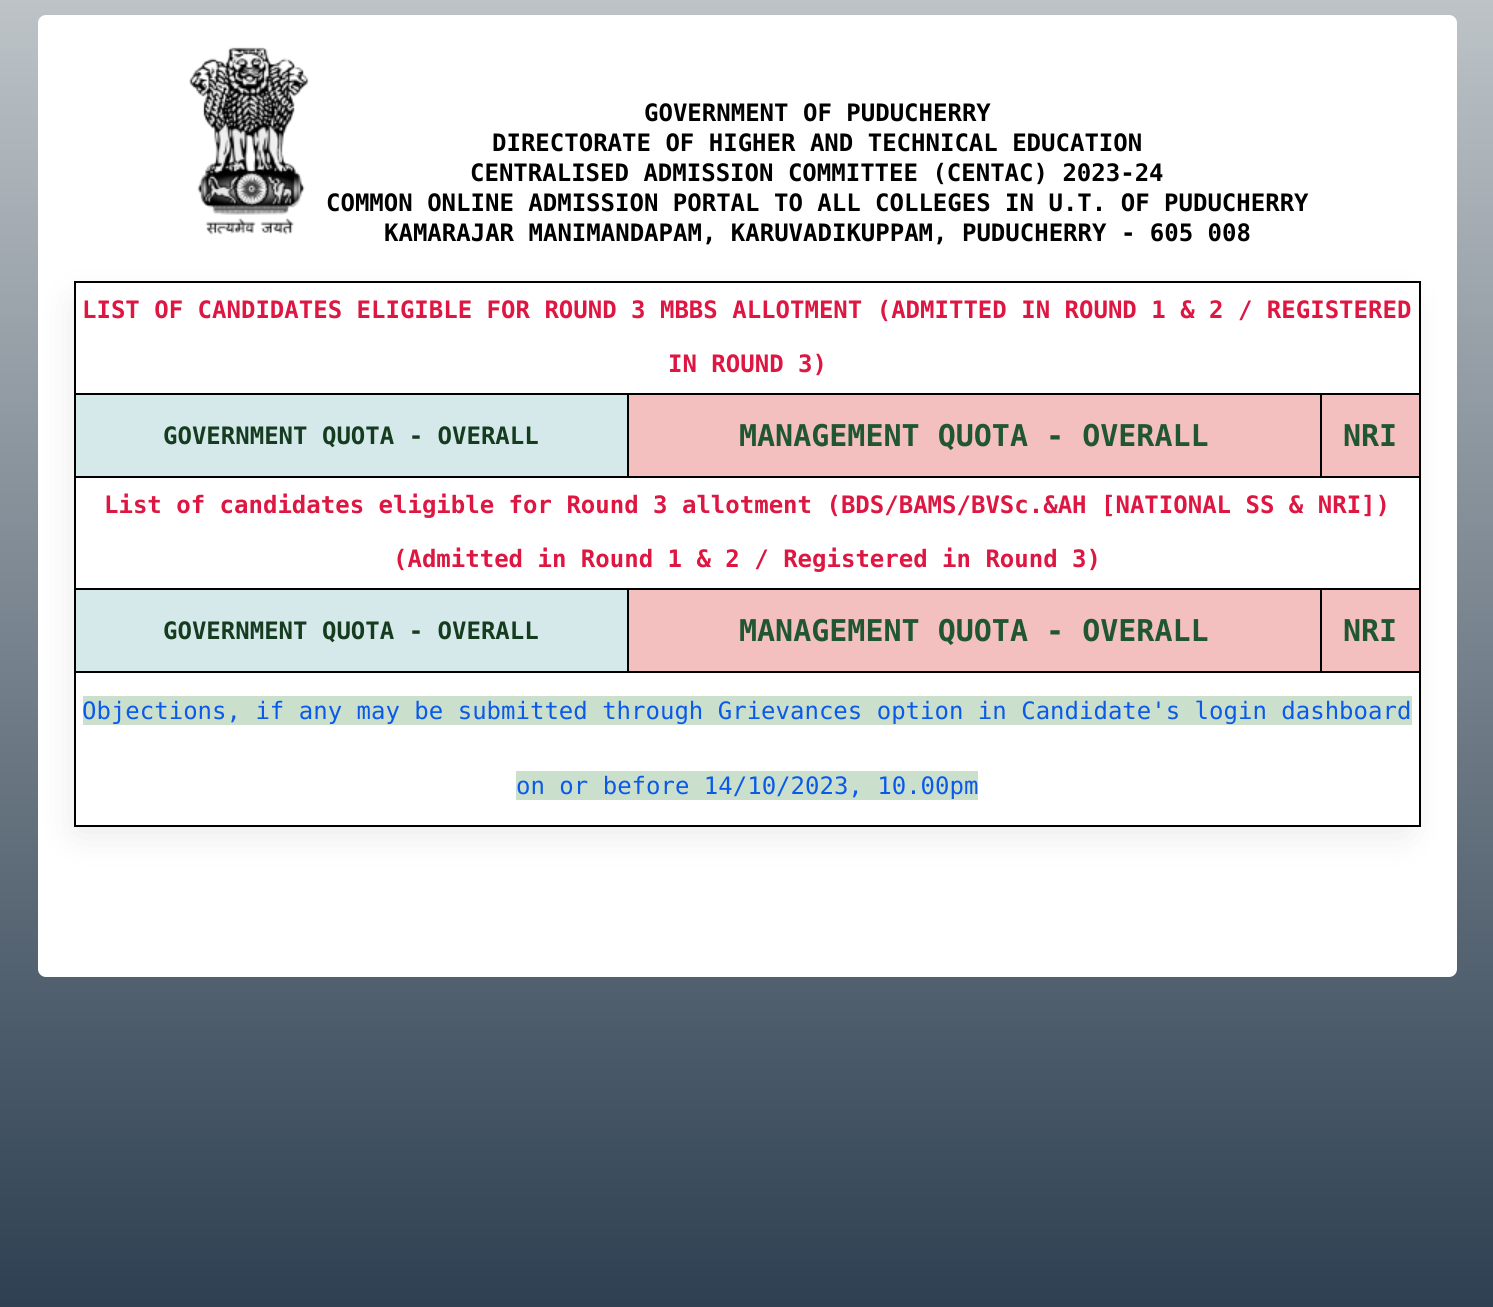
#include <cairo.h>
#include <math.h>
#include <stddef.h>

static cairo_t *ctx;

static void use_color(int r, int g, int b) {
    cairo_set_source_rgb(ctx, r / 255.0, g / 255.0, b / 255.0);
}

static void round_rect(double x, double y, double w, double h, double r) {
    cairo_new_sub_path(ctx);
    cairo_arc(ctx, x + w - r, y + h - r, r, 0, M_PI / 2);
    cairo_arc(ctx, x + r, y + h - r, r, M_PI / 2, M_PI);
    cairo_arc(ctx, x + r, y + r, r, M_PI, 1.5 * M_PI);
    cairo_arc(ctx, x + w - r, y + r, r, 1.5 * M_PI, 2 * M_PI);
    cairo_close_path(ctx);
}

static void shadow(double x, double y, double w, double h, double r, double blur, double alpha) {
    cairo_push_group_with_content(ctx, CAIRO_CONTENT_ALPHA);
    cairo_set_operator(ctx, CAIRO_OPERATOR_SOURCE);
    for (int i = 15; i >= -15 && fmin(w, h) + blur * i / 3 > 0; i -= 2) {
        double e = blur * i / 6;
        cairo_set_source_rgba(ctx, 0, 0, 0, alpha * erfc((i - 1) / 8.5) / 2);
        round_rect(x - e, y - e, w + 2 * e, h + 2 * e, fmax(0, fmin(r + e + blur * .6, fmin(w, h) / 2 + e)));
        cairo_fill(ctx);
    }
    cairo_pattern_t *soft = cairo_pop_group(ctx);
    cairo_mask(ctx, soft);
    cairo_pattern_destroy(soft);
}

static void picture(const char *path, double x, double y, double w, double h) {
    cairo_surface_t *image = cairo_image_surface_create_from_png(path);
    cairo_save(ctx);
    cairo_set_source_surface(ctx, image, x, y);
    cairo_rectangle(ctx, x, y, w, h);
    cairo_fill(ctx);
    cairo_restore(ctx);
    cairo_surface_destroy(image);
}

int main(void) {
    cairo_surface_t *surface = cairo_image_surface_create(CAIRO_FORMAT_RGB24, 1493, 1307);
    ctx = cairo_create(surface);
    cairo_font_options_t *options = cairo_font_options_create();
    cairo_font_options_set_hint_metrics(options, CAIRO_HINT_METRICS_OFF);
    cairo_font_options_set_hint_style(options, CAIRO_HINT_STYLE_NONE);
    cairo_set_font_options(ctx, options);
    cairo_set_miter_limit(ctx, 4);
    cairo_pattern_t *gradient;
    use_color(255, 255, 255);
    cairo_paint(ctx);
    gradient = cairo_pattern_create_linear(747, 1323, 747, 0);
    cairo_pattern_add_color_stop_rgba(gradient, 0, 0.173, 0.243, 0.314, 1);
    cairo_pattern_add_color_stop_rgba(gradient, 1, 0.741, 0.765, 0.78, 1);
    cairo_set_source(ctx, gradient);
    cairo_pattern_destroy(gradient);
    cairo_rectangle(ctx, 0, 0, 1493, 1307);
    cairo_fill(ctx);
    use_color(255, 255, 255);
    round_rect(38, 15, 1419, 962, 8);
    cairo_fill(ctx);
    picture("img1.png", 189, 47, 120, 188);
    cairo_select_font_face(ctx, "DejaVu Sans Mono", CAIRO_FONT_SLANT_NORMAL, CAIRO_FONT_WEIGHT_BOLD);
    cairo_set_font_size(ctx, 24);
    use_color(0, 0, 0);
    cairo_move_to(ctx, 644, 121);
    cairo_show_text(ctx, "GOVERNMENT OF PUDUCHERRY");
    cairo_move_to(ctx, 492, 151);
    cairo_show_text(ctx, "DIRECTORATE OF HIGHER AND TECHNICAL EDUCATION");
    cairo_move_to(ctx, 470, 181);
    cairo_show_text(ctx, "CENTRALISED ADMISSION COMMITTEE (CENTAC) 2023-24");
    cairo_move_to(ctx, 326, 211);
    cairo_show_text(ctx, "COMMON ONLINE ADMISSION PORTAL TO ALL COLLEGES IN U.T. OF PUDUCHERRY");
    cairo_move_to(ctx, 384, 241);
    cairo_show_text(ctx, "KAMARAJAR MANIMANDAPAM, KARUVADIKUPPAM, PUDUCHERRY - 605 008");
    use_color(0, 0, 0);
    shadow(77, 303, 1329, 528, 0, 19, 0.1);
    use_color(255, 255, 255);
    cairo_rectangle(ctx, 76, 283, 1343, 542);
    cairo_fill(ctx);
    use_color(0, 0, 0);
    cairo_rectangle(ctx, 74, 281, 1347, 2);
    cairo_fill(ctx);
    cairo_rectangle(ctx, 1320, 393, 101, 2);
    cairo_fill(ctx);
    cairo_rectangle(ctx, 74, 476, 1347, 2);
    cairo_fill(ctx);
    cairo_rectangle(ctx, 1320, 588, 101, 2);
    cairo_fill(ctx);
    cairo_rectangle(ctx, 74, 671, 1347, 2);
    cairo_fill(ctx);
    cairo_rectangle(ctx, 1419, 671, 2, 156);
    cairo_fill(ctx);
    cairo_rectangle(ctx, 1419, 588, 2, 84);
    cairo_fill(ctx);
    cairo_rectangle(ctx, 1419, 476, 2, 114);
    cairo_fill(ctx);
    cairo_rectangle(ctx, 1419, 393, 2, 84);
    cairo_fill(ctx);
    cairo_rectangle(ctx, 1419, 281, 2, 114);
    cairo_fill(ctx);
    cairo_rectangle(ctx, 1320, 393, 2, 84);
    cairo_fill(ctx);
    cairo_rectangle(ctx, 627, 393, 695, 2);
    cairo_fill(ctx);
    cairo_rectangle(ctx, 627, 393, 2, 84);
    cairo_fill(ctx);
    cairo_rectangle(ctx, 74, 393, 555, 2);
    cairo_fill(ctx);
    cairo_rectangle(ctx, 1320, 588, 2, 84);
    cairo_fill(ctx);
    cairo_rectangle(ctx, 627, 588, 695, 2);
    cairo_fill(ctx);
    cairo_rectangle(ctx, 627, 588, 2, 84);
    cairo_fill(ctx);
    cairo_rectangle(ctx, 74, 588, 555, 2);
    cairo_fill(ctx);
    cairo_rectangle(ctx, 74, 825, 1347, 2);
    cairo_fill(ctx);
    cairo_rectangle(ctx, 74, 671, 2, 156);
    cairo_fill(ctx);
    cairo_rectangle(ctx, 74, 588, 2, 84);
    cairo_fill(ctx);
    cairo_rectangle(ctx, 74, 476, 2, 114);
    cairo_fill(ctx);
    cairo_rectangle(ctx, 74, 393, 2, 84);
    cairo_fill(ctx);
    cairo_rectangle(ctx, 74, 281, 2, 114);
    cairo_fill(ctx);
    use_color(221, 22, 66);
    cairo_move_to(ctx, 82, 318);
    cairo_show_text(ctx, "LIST OF CANDIDATES ELIGIBLE FOR ROUND 3 MBBS ALLOTMENT (ADMITTED IN ROUND 1 & 2 / REGISTERED");
    cairo_move_to(ctx, 668, 372);
    cairo_show_text(ctx, "IN ROUND 3)");
    use_color(213, 233, 234);
    cairo_rectangle(ctx, 76, 395, 551, 81);
    cairo_fill(ctx);
    use_color(22, 60, 32);
    cairo_move_to(ctx, 163, 444);
    cairo_show_text(ctx, "GOVERNMENT QUOTA - OVERALL");
    use_color(243, 191, 191);
    cairo_rectangle(ctx, 629, 395, 691, 81);
    cairo_fill(ctx);
    cairo_set_font_size(ctx, 30);
    use_color(32, 86, 49);
    cairo_move_to(ctx, 739, 446);
    cairo_show_text(ctx, "MANAGEMENT QUOTA - OVERALL");
    use_color(243, 191, 191);
    cairo_rectangle(ctx, 1322, 395, 97, 81);
    cairo_fill(ctx);
    use_color(32, 86, 49);
    cairo_move_to(ctx, 1343, 446);
    cairo_show_text(ctx, "NRI");
    cairo_set_font_size(ctx, 24);
    use_color(221, 22, 66);
    cairo_move_to(ctx, 104, 513);
    cairo_show_text(ctx, "List of candidates eligible for Round 3 allotment (BDS/BAMS/BVSc.&AH [NATIONAL SS & NRI])");
    cairo_move_to(ctx, 393, 567);
    cairo_show_text(ctx, "(Admitted in Round 1 & 2 / Registered in Round 3)");
    use_color(213, 233, 234);
    cairo_rectangle(ctx, 76, 590, 551, 81);
    cairo_fill(ctx);
    use_color(22, 60, 32);
    cairo_move_to(ctx, 163, 639);
    cairo_show_text(ctx, "GOVERNMENT QUOTA - OVERALL");
    use_color(243, 191, 191);
    cairo_rectangle(ctx, 629, 590, 691, 81);
    cairo_fill(ctx);
    cairo_set_font_size(ctx, 30);
    use_color(32, 86, 49);
    cairo_move_to(ctx, 739, 641);
    cairo_show_text(ctx, "MANAGEMENT QUOTA - OVERALL");
    use_color(243, 191, 191);
    cairo_rectangle(ctx, 1322, 590, 97, 81);
    cairo_fill(ctx);
    use_color(32, 86, 49);
    cairo_move_to(ctx, 1343, 641);
    cairo_show_text(ctx, "NRI");
    use_color(203, 224, 204);
    cairo_rectangle(ctx, 83, 696, 1329, 29);
    cairo_fill(ctx);
    cairo_select_font_face(ctx, "DejaVu Sans Mono", CAIRO_FONT_SLANT_NORMAL, CAIRO_FONT_WEIGHT_NORMAL);
    cairo_set_font_size(ctx, 24);
    use_color(10, 89, 234);
    cairo_move_to(ctx, 82, 719);
    cairo_show_text(ctx, "Objections, if any may be submitted through Grievances option in Candidate's login dashboard");
    use_color(203, 224, 204);
    cairo_rectangle(ctx, 516, 771, 462, 29);
    cairo_fill(ctx);
    use_color(10, 89, 234);
    cairo_move_to(ctx, 516, 794);
    cairo_show_text(ctx, "on or before 14/10/2023, 10.00pm");
    cairo_surface_write_to_png(surface, "result.png");
    cairo_font_options_destroy(options);
    cairo_destroy(ctx);
    cairo_surface_destroy(surface);
    return 0;
}
